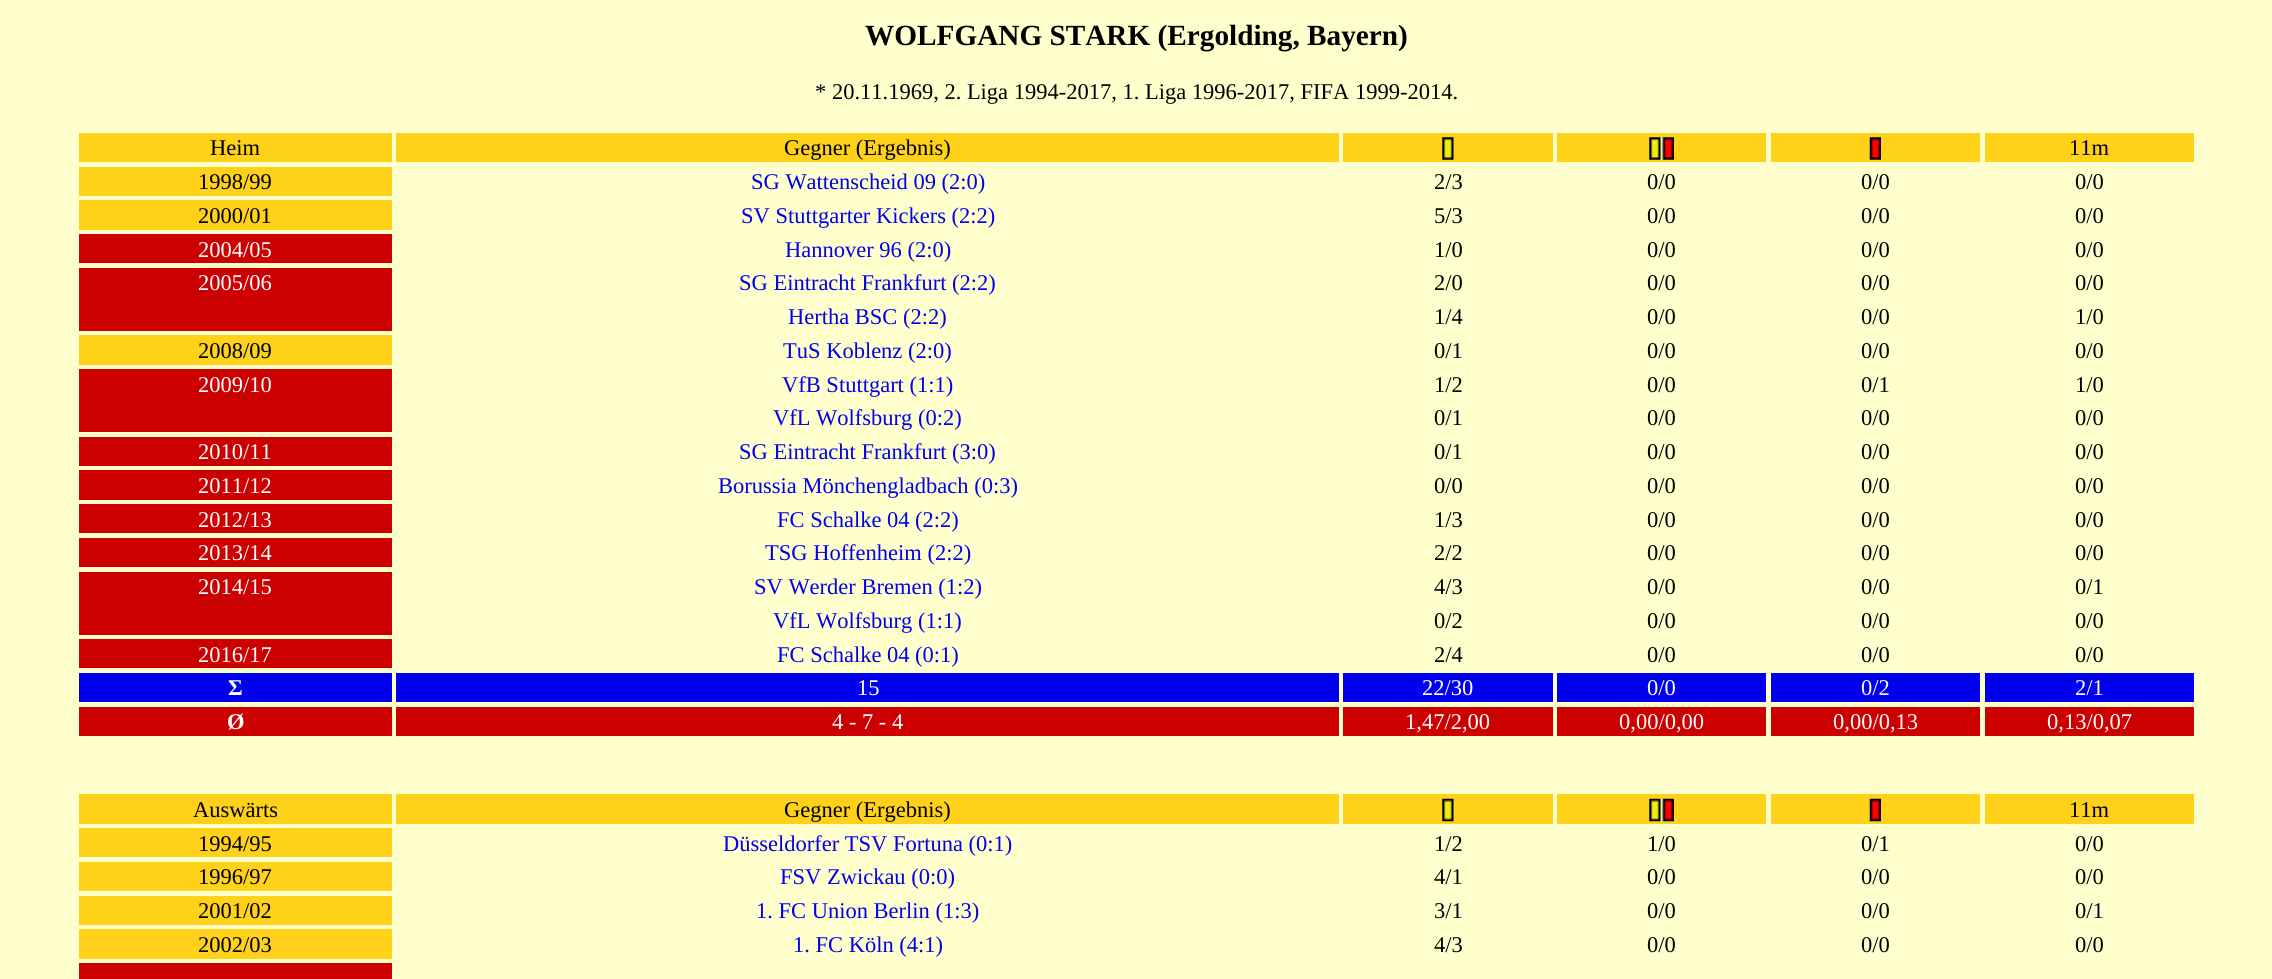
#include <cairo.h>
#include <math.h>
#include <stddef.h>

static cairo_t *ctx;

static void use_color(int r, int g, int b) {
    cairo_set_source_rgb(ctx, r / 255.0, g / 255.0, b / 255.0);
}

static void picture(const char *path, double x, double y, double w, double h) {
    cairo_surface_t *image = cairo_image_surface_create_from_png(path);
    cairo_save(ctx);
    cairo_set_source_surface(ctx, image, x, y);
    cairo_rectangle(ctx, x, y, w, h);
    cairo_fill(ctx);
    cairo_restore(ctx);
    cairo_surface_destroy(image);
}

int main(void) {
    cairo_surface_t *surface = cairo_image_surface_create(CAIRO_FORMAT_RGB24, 2272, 979);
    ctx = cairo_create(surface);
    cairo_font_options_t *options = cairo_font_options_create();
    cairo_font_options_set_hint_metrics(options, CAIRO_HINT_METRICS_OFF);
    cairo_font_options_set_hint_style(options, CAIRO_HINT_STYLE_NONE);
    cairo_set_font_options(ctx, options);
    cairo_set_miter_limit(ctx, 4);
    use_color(254, 255, 204);
    cairo_paint(ctx);
    cairo_select_font_face(ctx, "Liberation Serif", CAIRO_FONT_SLANT_NORMAL, CAIRO_FONT_WEIGHT_BOLD);
    cairo_set_font_size(ctx, 29.25);
    use_color(0, 0, 0);
    cairo_move_to(ctx, 865, 45);
    cairo_show_text(ctx, "WOLFGANG STARK (Ergolding, Bayern)");
    cairo_select_font_face(ctx, "Liberation Serif", CAIRO_FONT_SLANT_NORMAL, CAIRO_FONT_WEIGHT_NORMAL);
    cairo_set_font_size(ctx, 22.5);
    cairo_move_to(ctx, 815, 99);
    cairo_show_text(ctx, "* 20.11.1969, 2. Liga 1994-2017, 1. Liga 1996-2017, FIFA 1999-2014.");
    use_color(255, 209, 24);
    cairo_rectangle(ctx, 79, 133, 313, 29);
    cairo_fill(ctx);
    use_color(0, 0, 0);
    cairo_move_to(ctx, 210, 155);
    cairo_show_text(ctx, "Heim");
    use_color(255, 209, 24);
    cairo_rectangle(ctx, 396, 133, 943, 29);
    cairo_fill(ctx);
    use_color(0, 0, 0);
    cairo_move_to(ctx, 784, 155);
    cairo_show_text(ctx, "Gegner (Ergebnis)");
    use_color(255, 209, 24);
    cairo_rectangle(ctx, 1343, 133, 210, 29);
    cairo_fill(ctx);
    picture("img1.png", 1442, 137, 12, 23);
    cairo_rectangle(ctx, 1557, 133, 209, 29);
    cairo_fill(ctx);
    picture("img2.png", 1649, 137, 25, 23);
    cairo_rectangle(ctx, 1771, 133, 209, 29);
    cairo_fill(ctx);
    picture("img3.png", 1869, 137, 12, 23);
    cairo_rectangle(ctx, 1985, 133, 209, 29);
    cairo_fill(ctx);
    use_color(0, 0, 0);
    cairo_move_to(ctx, 2069, 155);
    cairo_show_text(ctx, "11m");
    use_color(255, 209, 24);
    cairo_rectangle(ctx, 79, 167, 313, 29);
    cairo_fill(ctx);
    use_color(0, 0, 0);
    cairo_move_to(ctx, 198, 189);
    cairo_show_text(ctx, "1998/99");
    use_color(0, 0, 238);
    cairo_move_to(ctx, 751, 189);
    cairo_show_text(ctx, "SG Wattenscheid 09 (2:0)");
    use_color(0, 0, 0);
    cairo_move_to(ctx, 1434, 189);
    cairo_show_text(ctx, "2/3");
    cairo_move_to(ctx, 1647, 189);
    cairo_show_text(ctx, "0/0");
    cairo_move_to(ctx, 1861, 189);
    cairo_show_text(ctx, "0/0");
    cairo_move_to(ctx, 2075, 189);
    cairo_show_text(ctx, "0/0");
    use_color(255, 209, 24);
    cairo_rectangle(ctx, 79, 200, 313, 30);
    cairo_fill(ctx);
    use_color(0, 0, 0);
    cairo_move_to(ctx, 198, 223);
    cairo_show_text(ctx, "2000/01");
    use_color(0, 0, 238);
    cairo_move_to(ctx, 741, 223);
    cairo_show_text(ctx, "SV Stuttgarter Kickers (2:2)");
    use_color(0, 0, 0);
    cairo_move_to(ctx, 1434, 223);
    cairo_show_text(ctx, "5/3");
    cairo_move_to(ctx, 1647, 223);
    cairo_show_text(ctx, "0/0");
    cairo_move_to(ctx, 1861, 223);
    cairo_show_text(ctx, "0/0");
    cairo_move_to(ctx, 2075, 223);
    cairo_show_text(ctx, "0/0");
    use_color(204, 0, 0);
    cairo_rectangle(ctx, 79, 234, 313, 29);
    cairo_fill(ctx);
    use_color(255, 255, 255);
    cairo_move_to(ctx, 198, 257);
    cairo_show_text(ctx, "2004/05");
    use_color(0, 0, 238);
    cairo_move_to(ctx, 785, 257);
    cairo_show_text(ctx, "Hannover 96 (2:0)");
    use_color(0, 0, 0);
    cairo_move_to(ctx, 1434, 257);
    cairo_show_text(ctx, "1/0");
    cairo_move_to(ctx, 1647, 257);
    cairo_show_text(ctx, "0/0");
    cairo_move_to(ctx, 1861, 257);
    cairo_show_text(ctx, "0/0");
    cairo_move_to(ctx, 2075, 257);
    cairo_show_text(ctx, "0/0");
    use_color(204, 0, 0);
    cairo_rectangle(ctx, 79, 268, 313, 63);
    cairo_fill(ctx);
    use_color(255, 255, 255);
    cairo_move_to(ctx, 198, 290);
    cairo_show_text(ctx, "2005/06");
    use_color(0, 0, 238);
    cairo_move_to(ctx, 739, 290);
    cairo_show_text(ctx, "SG Eintracht Frankfurt (2:2)");
    use_color(0, 0, 0);
    cairo_move_to(ctx, 1434, 290);
    cairo_show_text(ctx, "2/0");
    cairo_move_to(ctx, 1647, 290);
    cairo_show_text(ctx, "0/0");
    cairo_move_to(ctx, 1861, 290);
    cairo_show_text(ctx, "0/0");
    cairo_move_to(ctx, 2075, 290);
    cairo_show_text(ctx, "0/0");
    use_color(0, 0, 238);
    cairo_move_to(ctx, 788, 324);
    cairo_show_text(ctx, "Hertha BSC (2:2)");
    use_color(0, 0, 0);
    cairo_move_to(ctx, 1434, 324);
    cairo_show_text(ctx, "1/4");
    cairo_move_to(ctx, 1647, 324);
    cairo_show_text(ctx, "0/0");
    cairo_move_to(ctx, 1861, 324);
    cairo_show_text(ctx, "0/0");
    cairo_move_to(ctx, 2075, 324);
    cairo_show_text(ctx, "1/0");
    use_color(255, 209, 24);
    cairo_rectangle(ctx, 79, 335, 313, 30);
    cairo_fill(ctx);
    use_color(0, 0, 0);
    cairo_move_to(ctx, 198, 358);
    cairo_show_text(ctx, "2008/09");
    use_color(0, 0, 238);
    cairo_move_to(ctx, 783, 358);
    cairo_show_text(ctx, "TuS Koblenz (2:0)");
    use_color(0, 0, 0);
    cairo_move_to(ctx, 1434, 358);
    cairo_show_text(ctx, "0/1");
    cairo_move_to(ctx, 1647, 358);
    cairo_show_text(ctx, "0/0");
    cairo_move_to(ctx, 1861, 358);
    cairo_show_text(ctx, "0/0");
    cairo_move_to(ctx, 2075, 358);
    cairo_show_text(ctx, "0/0");
    use_color(204, 0, 0);
    cairo_rectangle(ctx, 79, 369, 313, 63);
    cairo_fill(ctx);
    use_color(255, 255, 255);
    cairo_move_to(ctx, 198, 392);
    cairo_show_text(ctx, "2009/10");
    use_color(0, 0, 238);
    cairo_move_to(ctx, 782, 392);
    cairo_show_text(ctx, "VfB Stuttgart (1:1)");
    use_color(0, 0, 0);
    cairo_move_to(ctx, 1434, 392);
    cairo_show_text(ctx, "1/2");
    cairo_move_to(ctx, 1647, 392);
    cairo_show_text(ctx, "0/0");
    cairo_move_to(ctx, 1861, 392);
    cairo_show_text(ctx, "0/1");
    cairo_move_to(ctx, 2075, 392);
    cairo_show_text(ctx, "1/0");
    use_color(0, 0, 238);
    cairo_move_to(ctx, 773, 425);
    cairo_show_text(ctx, "VfL Wolfsburg (0:2)");
    use_color(0, 0, 0);
    cairo_move_to(ctx, 1434, 425);
    cairo_show_text(ctx, "0/1");
    cairo_move_to(ctx, 1647, 425);
    cairo_show_text(ctx, "0/0");
    cairo_move_to(ctx, 1861, 425);
    cairo_show_text(ctx, "0/0");
    cairo_move_to(ctx, 2075, 425);
    cairo_show_text(ctx, "0/0");
    use_color(204, 0, 0);
    cairo_rectangle(ctx, 79, 437, 313, 29);
    cairo_fill(ctx);
    use_color(255, 255, 255);
    cairo_move_to(ctx, 198, 459);
    cairo_show_text(ctx, "2010/11");
    use_color(0, 0, 238);
    cairo_move_to(ctx, 739, 459);
    cairo_show_text(ctx, "SG Eintracht Frankfurt (3:0)");
    use_color(0, 0, 0);
    cairo_move_to(ctx, 1434, 459);
    cairo_show_text(ctx, "0/1");
    cairo_move_to(ctx, 1647, 459);
    cairo_show_text(ctx, "0/0");
    cairo_move_to(ctx, 1861, 459);
    cairo_show_text(ctx, "0/0");
    cairo_move_to(ctx, 2075, 459);
    cairo_show_text(ctx, "0/0");
    use_color(204, 0, 0);
    cairo_rectangle(ctx, 79, 470, 313, 30);
    cairo_fill(ctx);
    use_color(255, 255, 255);
    cairo_move_to(ctx, 198, 493);
    cairo_show_text(ctx, "2011/12");
    use_color(0, 0, 238);
    cairo_move_to(ctx, 718, 493);
    cairo_show_text(ctx, "Borussia Mönchengladbach (0:3)");
    use_color(0, 0, 0);
    cairo_move_to(ctx, 1434, 493);
    cairo_show_text(ctx, "0/0");
    cairo_move_to(ctx, 1647, 493);
    cairo_show_text(ctx, "0/0");
    cairo_move_to(ctx, 1861, 493);
    cairo_show_text(ctx, "0/0");
    cairo_move_to(ctx, 2075, 493);
    cairo_show_text(ctx, "0/0");
    use_color(204, 0, 0);
    cairo_rectangle(ctx, 79, 504, 313, 29);
    cairo_fill(ctx);
    use_color(255, 255, 255);
    cairo_move_to(ctx, 198, 527);
    cairo_show_text(ctx, "2012/13");
    use_color(0, 0, 238);
    cairo_move_to(ctx, 777, 527);
    cairo_show_text(ctx, "FC Schalke 04 (2:2)");
    use_color(0, 0, 0);
    cairo_move_to(ctx, 1434, 527);
    cairo_show_text(ctx, "1/3");
    cairo_move_to(ctx, 1647, 527);
    cairo_show_text(ctx, "0/0");
    cairo_move_to(ctx, 1861, 527);
    cairo_show_text(ctx, "0/0");
    cairo_move_to(ctx, 2075, 527);
    cairo_show_text(ctx, "0/0");
    use_color(204, 0, 0);
    cairo_rectangle(ctx, 79, 538, 313, 29);
    cairo_fill(ctx);
    use_color(255, 255, 255);
    cairo_move_to(ctx, 198, 560);
    cairo_show_text(ctx, "2013/14");
    use_color(0, 0, 238);
    cairo_move_to(ctx, 765, 560);
    cairo_show_text(ctx, "TSG Hoffenheim (2:2)");
    use_color(0, 0, 0);
    cairo_move_to(ctx, 1434, 560);
    cairo_show_text(ctx, "2/2");
    cairo_move_to(ctx, 1647, 560);
    cairo_show_text(ctx, "0/0");
    cairo_move_to(ctx, 1861, 560);
    cairo_show_text(ctx, "0/0");
    cairo_move_to(ctx, 2075, 560);
    cairo_show_text(ctx, "0/0");
    use_color(204, 0, 0);
    cairo_rectangle(ctx, 79, 572, 313, 63);
    cairo_fill(ctx);
    use_color(255, 255, 255);
    cairo_move_to(ctx, 198, 594);
    cairo_show_text(ctx, "2014/15");
    use_color(0, 0, 238);
    cairo_move_to(ctx, 754, 594);
    cairo_show_text(ctx, "SV Werder Bremen (1:2)");
    use_color(0, 0, 0);
    cairo_move_to(ctx, 1434, 594);
    cairo_show_text(ctx, "4/3");
    cairo_move_to(ctx, 1647, 594);
    cairo_show_text(ctx, "0/0");
    cairo_move_to(ctx, 1861, 594);
    cairo_show_text(ctx, "0/0");
    cairo_move_to(ctx, 2075, 594);
    cairo_show_text(ctx, "0/1");
    use_color(0, 0, 238);
    cairo_move_to(ctx, 773, 628);
    cairo_show_text(ctx, "VfL Wolfsburg (1:1)");
    use_color(0, 0, 0);
    cairo_move_to(ctx, 1434, 628);
    cairo_show_text(ctx, "0/2");
    cairo_move_to(ctx, 1647, 628);
    cairo_show_text(ctx, "0/0");
    cairo_move_to(ctx, 1861, 628);
    cairo_show_text(ctx, "0/0");
    cairo_move_to(ctx, 2075, 628);
    cairo_show_text(ctx, "0/0");
    use_color(204, 0, 0);
    cairo_rectangle(ctx, 79, 639, 313, 29);
    cairo_fill(ctx);
    use_color(255, 255, 255);
    cairo_move_to(ctx, 198, 662);
    cairo_show_text(ctx, "2016/17");
    use_color(0, 0, 238);
    cairo_move_to(ctx, 777, 662);
    cairo_show_text(ctx, "FC Schalke 04 (0:1)");
    use_color(0, 0, 0);
    cairo_move_to(ctx, 1434, 662);
    cairo_show_text(ctx, "2/4");
    cairo_move_to(ctx, 1647, 662);
    cairo_show_text(ctx, "0/0");
    cairo_move_to(ctx, 1861, 662);
    cairo_show_text(ctx, "0/0");
    cairo_move_to(ctx, 2075, 662);
    cairo_show_text(ctx, "0/0");
    use_color(0, 0, 238);
    cairo_rectangle(ctx, 79, 673, 313, 29);
    cairo_fill(ctx);
    cairo_select_font_face(ctx, "Liberation Serif", CAIRO_FONT_SLANT_NORMAL, CAIRO_FONT_WEIGHT_BOLD);
    use_color(255, 255, 255);
    cairo_move_to(ctx, 228, 695);
    cairo_show_text(ctx, "Σ");
    use_color(0, 0, 238);
    cairo_rectangle(ctx, 396, 673, 943, 29);
    cairo_fill(ctx);
    cairo_select_font_face(ctx, "Liberation Serif", CAIRO_FONT_SLANT_NORMAL, CAIRO_FONT_WEIGHT_NORMAL);
    use_color(255, 255, 255);
    cairo_move_to(ctx, 857, 695);
    cairo_show_text(ctx, "15");
    use_color(0, 0, 238);
    cairo_rectangle(ctx, 1343, 673, 210, 29);
    cairo_fill(ctx);
    use_color(255, 255, 255);
    cairo_move_to(ctx, 1422, 695);
    cairo_show_text(ctx, "22/30");
    use_color(0, 0, 238);
    cairo_rectangle(ctx, 1557, 673, 209, 29);
    cairo_fill(ctx);
    use_color(255, 255, 255);
    cairo_move_to(ctx, 1647, 695);
    cairo_show_text(ctx, "0/0");
    use_color(0, 0, 238);
    cairo_rectangle(ctx, 1771, 673, 209, 29);
    cairo_fill(ctx);
    use_color(255, 255, 255);
    cairo_move_to(ctx, 1861, 695);
    cairo_show_text(ctx, "0/2");
    use_color(0, 0, 238);
    cairo_rectangle(ctx, 1985, 673, 209, 29);
    cairo_fill(ctx);
    use_color(255, 255, 255);
    cairo_move_to(ctx, 2075, 695);
    cairo_show_text(ctx, "2/1");
    use_color(204, 0, 0);
    cairo_rectangle(ctx, 79, 707, 313, 29);
    cairo_fill(ctx);
    cairo_select_font_face(ctx, "Liberation Serif", CAIRO_FONT_SLANT_NORMAL, CAIRO_FONT_WEIGHT_BOLD);
    use_color(255, 255, 255);
    cairo_move_to(ctx, 227, 729);
    cairo_show_text(ctx, "Ø");
    use_color(204, 0, 0);
    cairo_rectangle(ctx, 396, 707, 943, 29);
    cairo_fill(ctx);
    cairo_select_font_face(ctx, "Liberation Serif", CAIRO_FONT_SLANT_NORMAL, CAIRO_FONT_WEIGHT_NORMAL);
    use_color(255, 255, 255);
    cairo_move_to(ctx, 832, 729);
    cairo_show_text(ctx, "4 - 7 - 4");
    use_color(204, 0, 0);
    cairo_rectangle(ctx, 1343, 707, 210, 29);
    cairo_fill(ctx);
    use_color(255, 255, 255);
    cairo_move_to(ctx, 1405, 729);
    cairo_show_text(ctx, "1,47/2,00");
    use_color(204, 0, 0);
    cairo_rectangle(ctx, 1557, 707, 209, 29);
    cairo_fill(ctx);
    use_color(255, 255, 255);
    cairo_move_to(ctx, 1619, 729);
    cairo_show_text(ctx, "0,00/0,00");
    use_color(204, 0, 0);
    cairo_rectangle(ctx, 1771, 707, 209, 29);
    cairo_fill(ctx);
    use_color(255, 255, 255);
    cairo_move_to(ctx, 1833, 729);
    cairo_show_text(ctx, "0,00/0,13");
    use_color(204, 0, 0);
    cairo_rectangle(ctx, 1985, 707, 209, 29);
    cairo_fill(ctx);
    use_color(255, 255, 255);
    cairo_move_to(ctx, 2047, 729);
    cairo_show_text(ctx, "0,13/0,07");
    use_color(255, 209, 24);
    cairo_rectangle(ctx, 79, 794, 313, 30);
    cairo_fill(ctx);
    use_color(0, 0, 0);
    cairo_move_to(ctx, 193, 817);
    cairo_show_text(ctx, "Auswärts");
    use_color(255, 209, 24);
    cairo_rectangle(ctx, 396, 794, 943, 30);
    cairo_fill(ctx);
    use_color(0, 0, 0);
    cairo_move_to(ctx, 784, 817);
    cairo_show_text(ctx, "Gegner (Ergebnis)");
    use_color(255, 209, 24);
    cairo_rectangle(ctx, 1343, 794, 210, 30);
    cairo_fill(ctx);
    picture("img4.png", 1442, 798, 12, 24);
    cairo_rectangle(ctx, 1557, 794, 209, 30);
    cairo_fill(ctx);
    picture("img5.png", 1649, 798, 25, 24);
    cairo_rectangle(ctx, 1771, 794, 209, 30);
    cairo_fill(ctx);
    picture("img6.png", 1869, 798, 12, 24);
    cairo_rectangle(ctx, 1985, 794, 209, 30);
    cairo_fill(ctx);
    use_color(0, 0, 0);
    cairo_move_to(ctx, 2069, 817);
    cairo_show_text(ctx, "11m");
    use_color(255, 209, 24);
    cairo_rectangle(ctx, 79, 828, 313, 29);
    cairo_fill(ctx);
    use_color(0, 0, 0);
    cairo_move_to(ctx, 198, 851);
    cairo_show_text(ctx, "1994/95");
    use_color(0, 0, 238);
    cairo_move_to(ctx, 723, 851);
    cairo_show_text(ctx, "Düsseldorfer TSV Fortuna (0:1)");
    use_color(0, 0, 0);
    cairo_move_to(ctx, 1434, 851);
    cairo_show_text(ctx, "1/2");
    cairo_move_to(ctx, 1647, 851);
    cairo_show_text(ctx, "1/0");
    cairo_move_to(ctx, 1861, 851);
    cairo_show_text(ctx, "0/1");
    cairo_move_to(ctx, 2075, 851);
    cairo_show_text(ctx, "0/0");
    use_color(255, 209, 24);
    cairo_rectangle(ctx, 79, 862, 313, 29);
    cairo_fill(ctx);
    use_color(0, 0, 0);
    cairo_move_to(ctx, 198, 884);
    cairo_show_text(ctx, "1996/97");
    use_color(0, 0, 238);
    cairo_move_to(ctx, 780, 884);
    cairo_show_text(ctx, "FSV Zwickau (0:0)");
    use_color(0, 0, 0);
    cairo_move_to(ctx, 1434, 884);
    cairo_show_text(ctx, "4/1");
    cairo_move_to(ctx, 1647, 884);
    cairo_show_text(ctx, "0/0");
    cairo_move_to(ctx, 1861, 884);
    cairo_show_text(ctx, "0/0");
    cairo_move_to(ctx, 2075, 884);
    cairo_show_text(ctx, "0/0");
    use_color(255, 209, 24);
    cairo_rectangle(ctx, 79, 896, 313, 29);
    cairo_fill(ctx);
    use_color(0, 0, 0);
    cairo_move_to(ctx, 198, 918);
    cairo_show_text(ctx, "2001/02");
    use_color(0, 0, 238);
    cairo_move_to(ctx, 756, 918);
    cairo_show_text(ctx, "1. FC Union Berlin (1:3)");
    use_color(0, 0, 0);
    cairo_move_to(ctx, 1434, 918);
    cairo_show_text(ctx, "3/1");
    cairo_move_to(ctx, 1647, 918);
    cairo_show_text(ctx, "0/0");
    cairo_move_to(ctx, 1861, 918);
    cairo_show_text(ctx, "0/0");
    cairo_move_to(ctx, 2075, 918);
    cairo_show_text(ctx, "0/1");
    use_color(255, 209, 24);
    cairo_rectangle(ctx, 79, 929, 313, 30);
    cairo_fill(ctx);
    use_color(0, 0, 0);
    cairo_move_to(ctx, 198, 952);
    cairo_show_text(ctx, "2002/03");
    use_color(0, 0, 238);
    cairo_move_to(ctx, 793, 952);
    cairo_show_text(ctx, "1. FC Köln (4:1)");
    use_color(0, 0, 0);
    cairo_move_to(ctx, 1434, 952);
    cairo_show_text(ctx, "4/3");
    cairo_move_to(ctx, 1647, 952);
    cairo_show_text(ctx, "0/0");
    cairo_move_to(ctx, 1861, 952);
    cairo_show_text(ctx, "0/0");
    cairo_move_to(ctx, 2075, 952);
    cairo_show_text(ctx, "0/0");
    use_color(204, 0, 0);
    cairo_rectangle(ctx, 79, 963, 313, 16);
    cairo_fill(ctx);
    cairo_surface_write_to_png(surface, "result.png");
    cairo_font_options_destroy(options);
    cairo_destroy(ctx);
    cairo_surface_destroy(surface);
    return 0;
}
